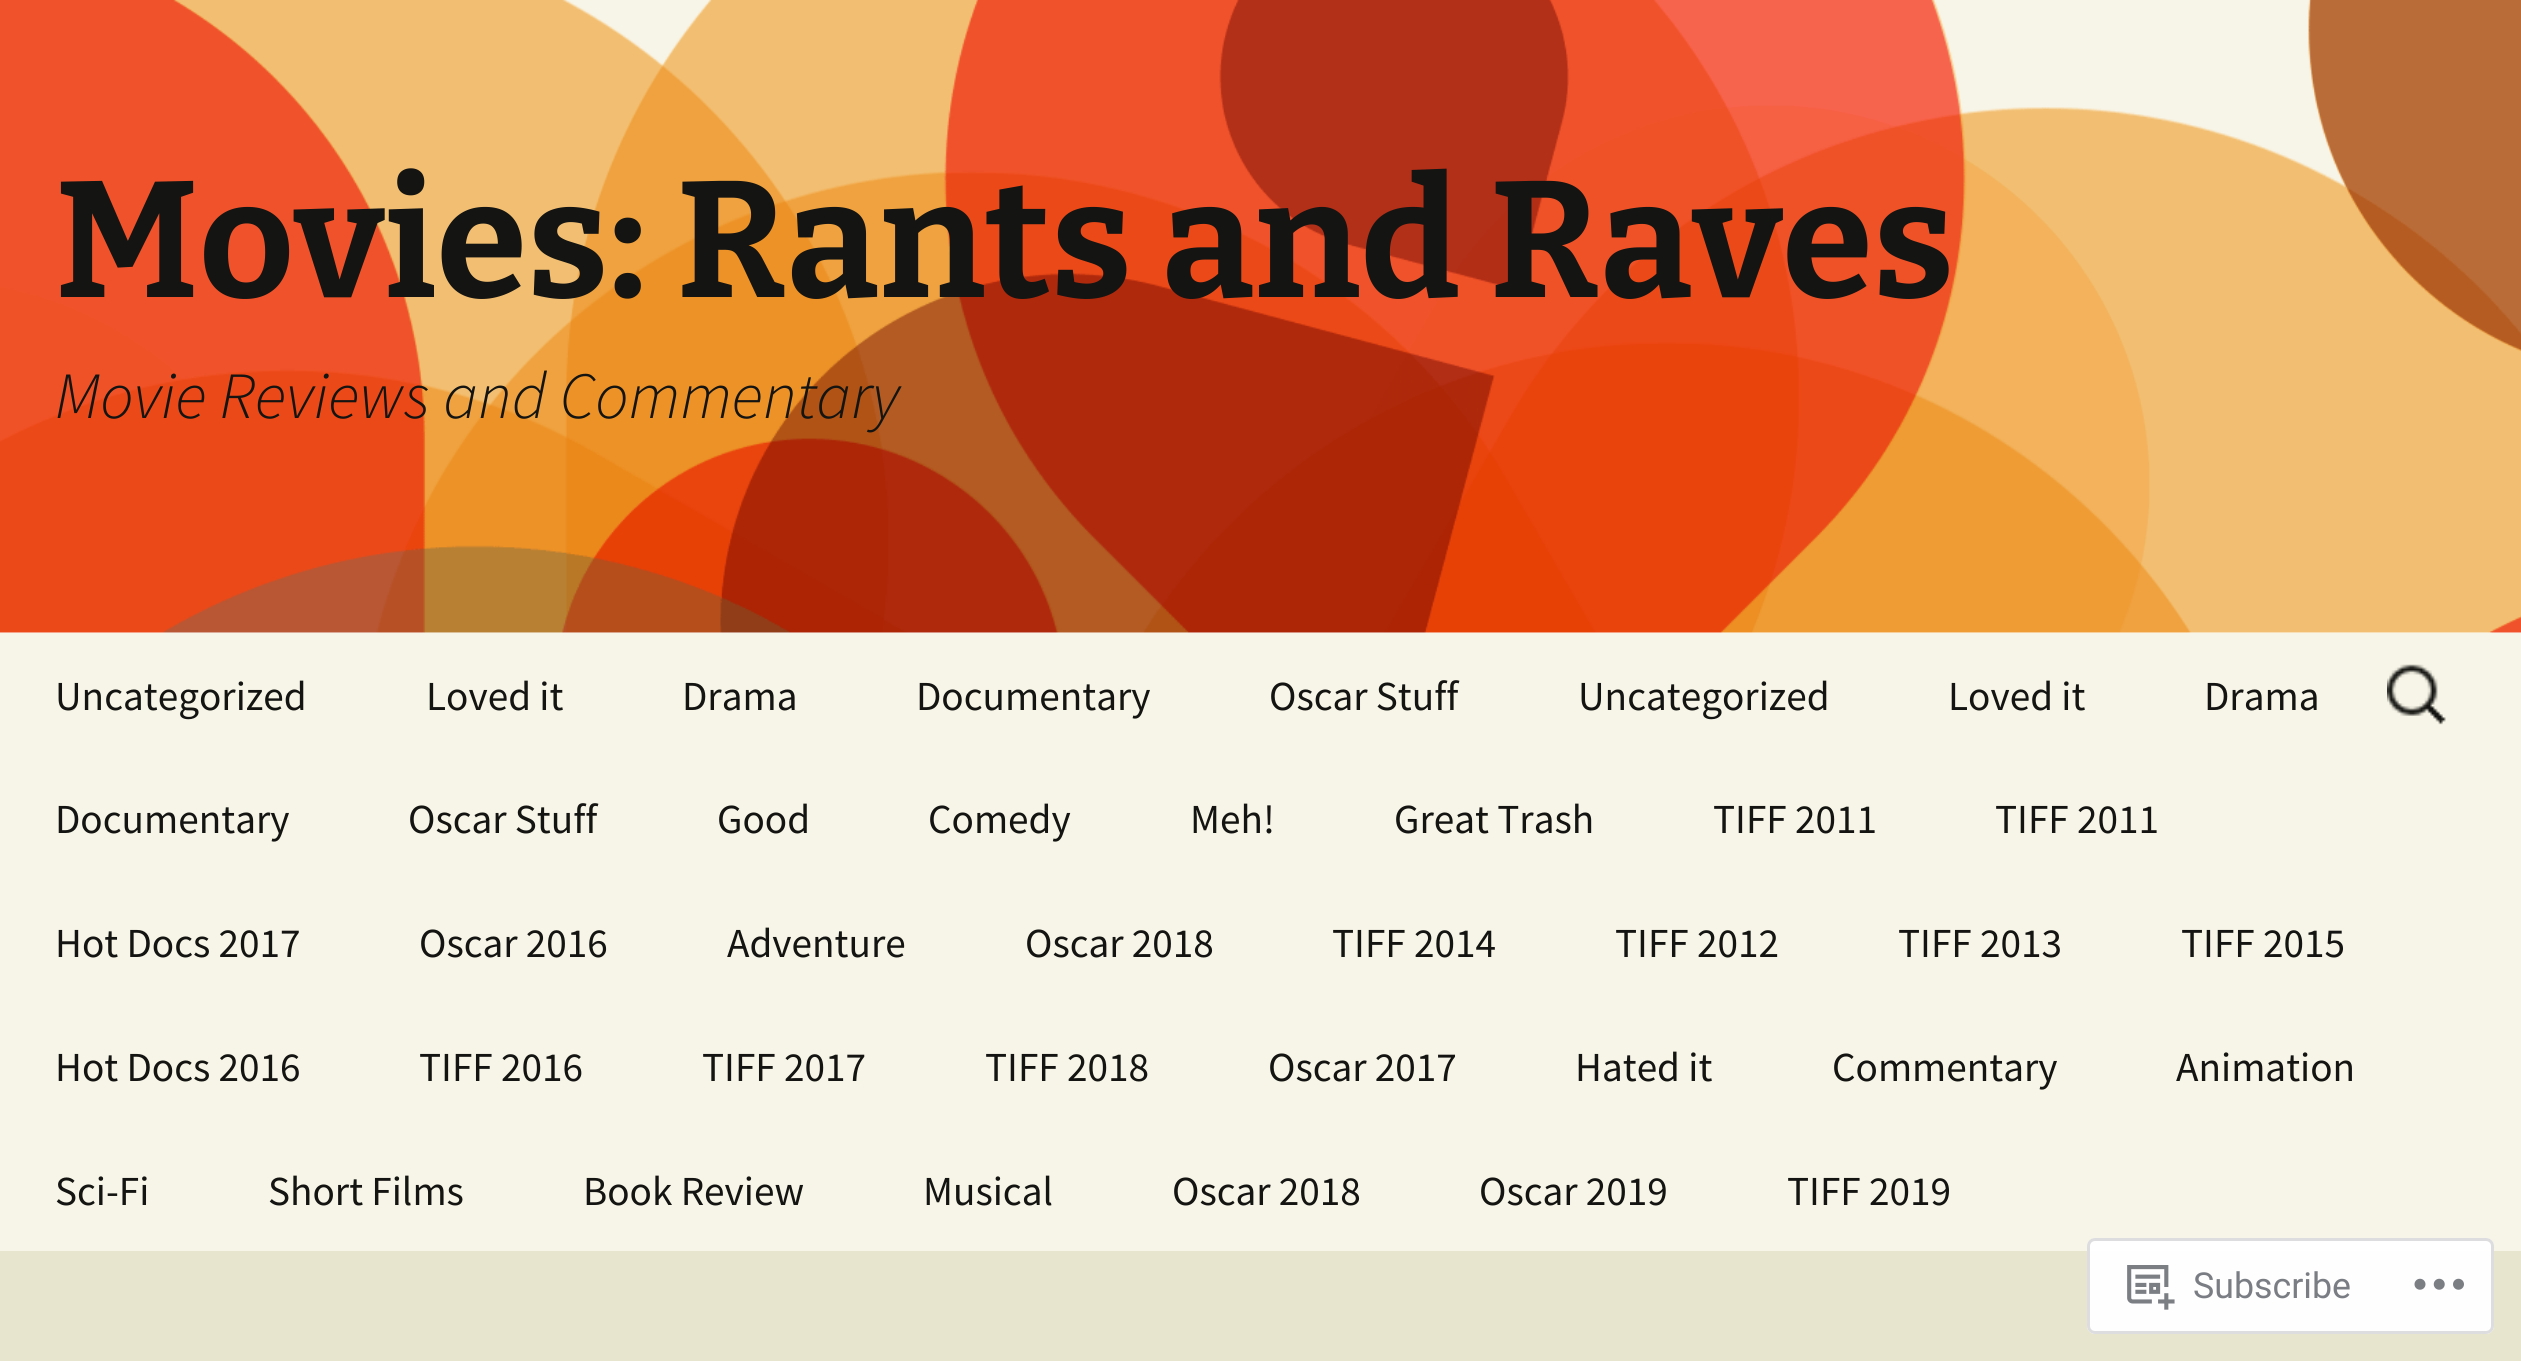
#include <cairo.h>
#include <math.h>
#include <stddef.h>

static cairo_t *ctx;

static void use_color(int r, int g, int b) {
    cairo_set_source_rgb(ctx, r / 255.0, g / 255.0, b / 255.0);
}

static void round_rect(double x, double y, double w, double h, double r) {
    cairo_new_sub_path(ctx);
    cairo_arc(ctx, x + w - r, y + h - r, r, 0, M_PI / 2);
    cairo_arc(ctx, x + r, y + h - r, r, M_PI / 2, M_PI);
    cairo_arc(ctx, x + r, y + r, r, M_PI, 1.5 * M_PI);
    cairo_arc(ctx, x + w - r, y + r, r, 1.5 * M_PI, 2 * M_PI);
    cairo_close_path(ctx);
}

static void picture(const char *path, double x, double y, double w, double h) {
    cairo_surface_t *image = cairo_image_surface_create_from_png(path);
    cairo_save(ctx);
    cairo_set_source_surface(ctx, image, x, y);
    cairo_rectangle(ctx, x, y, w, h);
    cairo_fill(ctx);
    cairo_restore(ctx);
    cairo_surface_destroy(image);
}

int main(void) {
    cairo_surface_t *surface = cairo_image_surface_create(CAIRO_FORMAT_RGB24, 2521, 1361);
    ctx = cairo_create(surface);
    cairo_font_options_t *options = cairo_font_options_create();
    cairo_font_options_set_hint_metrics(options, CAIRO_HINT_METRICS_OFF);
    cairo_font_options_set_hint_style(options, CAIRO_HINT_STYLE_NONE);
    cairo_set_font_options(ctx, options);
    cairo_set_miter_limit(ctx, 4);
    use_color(255, 255, 255);
    cairo_paint(ctx);
    picture("img1.png", 0, 0, 2521, 633);
    cairo_select_font_face(ctx, "Bitter", CAIRO_FONT_SLANT_NORMAL, CAIRO_FONT_WEIGHT_BOLD);
    cairo_set_font_size(ctx, 165);
    use_color(20, 20, 18);
    cairo_move_to(ctx, 55, 297);
    cairo_show_text(ctx, "Movies: Rants and Raves");
    cairo_select_font_face(ctx, "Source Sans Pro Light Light", CAIRO_FONT_SLANT_ITALIC, CAIRO_FONT_WEIGHT_NORMAL);
    cairo_set_font_size(ctx, 66);
    cairo_move_to(ctx, 55, 418);
    cairo_show_text(ctx, "Movie Reviews and Commentary");
    use_color(247, 245, 231);
    cairo_rectangle(ctx, 0, 633, 2521, 618);
    cairo_fill(ctx);
    cairo_select_font_face(ctx, "Source Sans Pro", CAIRO_FONT_SLANT_NORMAL, CAIRO_FONT_WEIGHT_NORMAL);
    cairo_set_font_size(ctx, 41.25);
    use_color(20, 20, 18);
    cairo_move_to(ctx, 55, 710);
    cairo_show_text(ctx, "Uncategorized");
    cairo_move_to(ctx, 426, 710);
    cairo_show_text(ctx, "Loved it");
    cairo_move_to(ctx, 682, 710);
    cairo_show_text(ctx, "Drama");
    cairo_move_to(ctx, 916, 710);
    cairo_show_text(ctx, "Documentary");
    cairo_move_to(ctx, 1269, 710);
    cairo_show_text(ctx, "Oscar Stuff");
    cairo_move_to(ctx, 1578, 710);
    cairo_show_text(ctx, "Uncategorized");
    cairo_move_to(ctx, 1948, 710);
    cairo_show_text(ctx, "Loved it");
    cairo_move_to(ctx, 2204, 710);
    cairo_show_text(ctx, "Drama");
    cairo_move_to(ctx, 55, 833);
    cairo_show_text(ctx, "Documentary");
    cairo_move_to(ctx, 408, 833);
    cairo_show_text(ctx, "Oscar Stuff");
    cairo_move_to(ctx, 717, 833);
    cairo_show_text(ctx, "Good");
    cairo_move_to(ctx, 928, 833);
    cairo_show_text(ctx, "Comedy");
    cairo_move_to(ctx, 1190, 833);
    cairo_show_text(ctx, "Meh!");
    cairo_move_to(ctx, 1394, 833);
    cairo_show_text(ctx, "Great Trash");
    cairo_move_to(ctx, 1713, 833);
    cairo_show_text(ctx, "TIFF 2011");
    cairo_move_to(ctx, 1995, 833);
    cairo_show_text(ctx, "TIFF 2011");
    cairo_move_to(ctx, 55, 957);
    cairo_show_text(ctx, "Hot Docs 2017");
    cairo_move_to(ctx, 419, 957);
    cairo_show_text(ctx, "Oscar 2016");
    cairo_move_to(ctx, 727, 957);
    cairo_show_text(ctx, "Adventure");
    cairo_move_to(ctx, 1025, 957);
    cairo_show_text(ctx, "Oscar 2018");
    cairo_move_to(ctx, 1332, 957);
    cairo_show_text(ctx, "TIFF 2014");
    cairo_move_to(ctx, 1615, 957);
    cairo_show_text(ctx, "TIFF 2012");
    cairo_move_to(ctx, 1898, 957);
    cairo_show_text(ctx, "TIFF 2013");
    cairo_move_to(ctx, 2181, 957);
    cairo_show_text(ctx, "TIFF 2015");
    cairo_move_to(ctx, 55, 1081);
    cairo_show_text(ctx, "Hot Docs 2016");
    cairo_move_to(ctx, 419, 1081);
    cairo_show_text(ctx, "TIFF 2016");
    cairo_move_to(ctx, 702, 1081);
    cairo_show_text(ctx, "TIFF 2017");
    cairo_move_to(ctx, 985, 1081);
    cairo_show_text(ctx, "TIFF 2018");
    cairo_move_to(ctx, 1268, 1081);
    cairo_show_text(ctx, "Oscar 2017");
    cairo_move_to(ctx, 1575, 1081);
    cairo_show_text(ctx, "Hated it");
    cairo_move_to(ctx, 1832, 1081);
    cairo_show_text(ctx, "Commentary");
    cairo_move_to(ctx, 2176, 1081);
    cairo_show_text(ctx, "Animation");
    cairo_move_to(ctx, 55, 1205);
    cairo_show_text(ctx, "Sci-Fi");
    cairo_move_to(ctx, 268, 1205);
    cairo_show_text(ctx, "Short Films");
    cairo_move_to(ctx, 583, 1205);
    cairo_show_text(ctx, "Book Review");
    cairo_move_to(ctx, 923, 1205);
    cairo_show_text(ctx, "Musical");
    cairo_move_to(ctx, 1172, 1205);
    cairo_show_text(ctx, "Oscar 2018");
    cairo_move_to(ctx, 1479, 1205);
    cairo_show_text(ctx, "Oscar 2019");
    cairo_move_to(ctx, 1787, 1205);
    cairo_show_text(ctx, "TIFF 2019");
    picture("img2.png", 2387, 664, 59, 61);
    use_color(232, 229, 206);
    cairo_rectangle(ctx, 0, 1251, 2521, 110);
    cairo_fill(ctx);
    cairo_set_source_rgba(ctx, 1, 1, 1, 0.98);
    round_rect(2087, 1238, 407, 96, 8);
    cairo_fill(ctx);
    round_rect(2088.5, 1239.5, 404, 93, 6.5);
    cairo_set_source_rgba(ctx, 0.863, 0.863, 0.871, 0.98);
    cairo_set_line_width(ctx, 3);
    cairo_stroke(ctx);
    picture("img3.png", 2127, 1265, 48, 45);
    cairo_select_font_face(ctx, "Roboto", CAIRO_FONT_SLANT_NORMAL, CAIRO_FONT_WEIGHT_NORMAL);
    cairo_set_font_size(ctx, 35.75);
    use_color(122, 126, 132);
    cairo_move_to(ctx, 2193, 1298);
    cairo_show_text(ctx, "Subscribe");
    picture("img4.png", 2414, 1278, 50, 12);
    cairo_surface_write_to_png(surface, "result.png");
    cairo_font_options_destroy(options);
    cairo_destroy(ctx);
    cairo_surface_destroy(surface);
    return 0;
}
